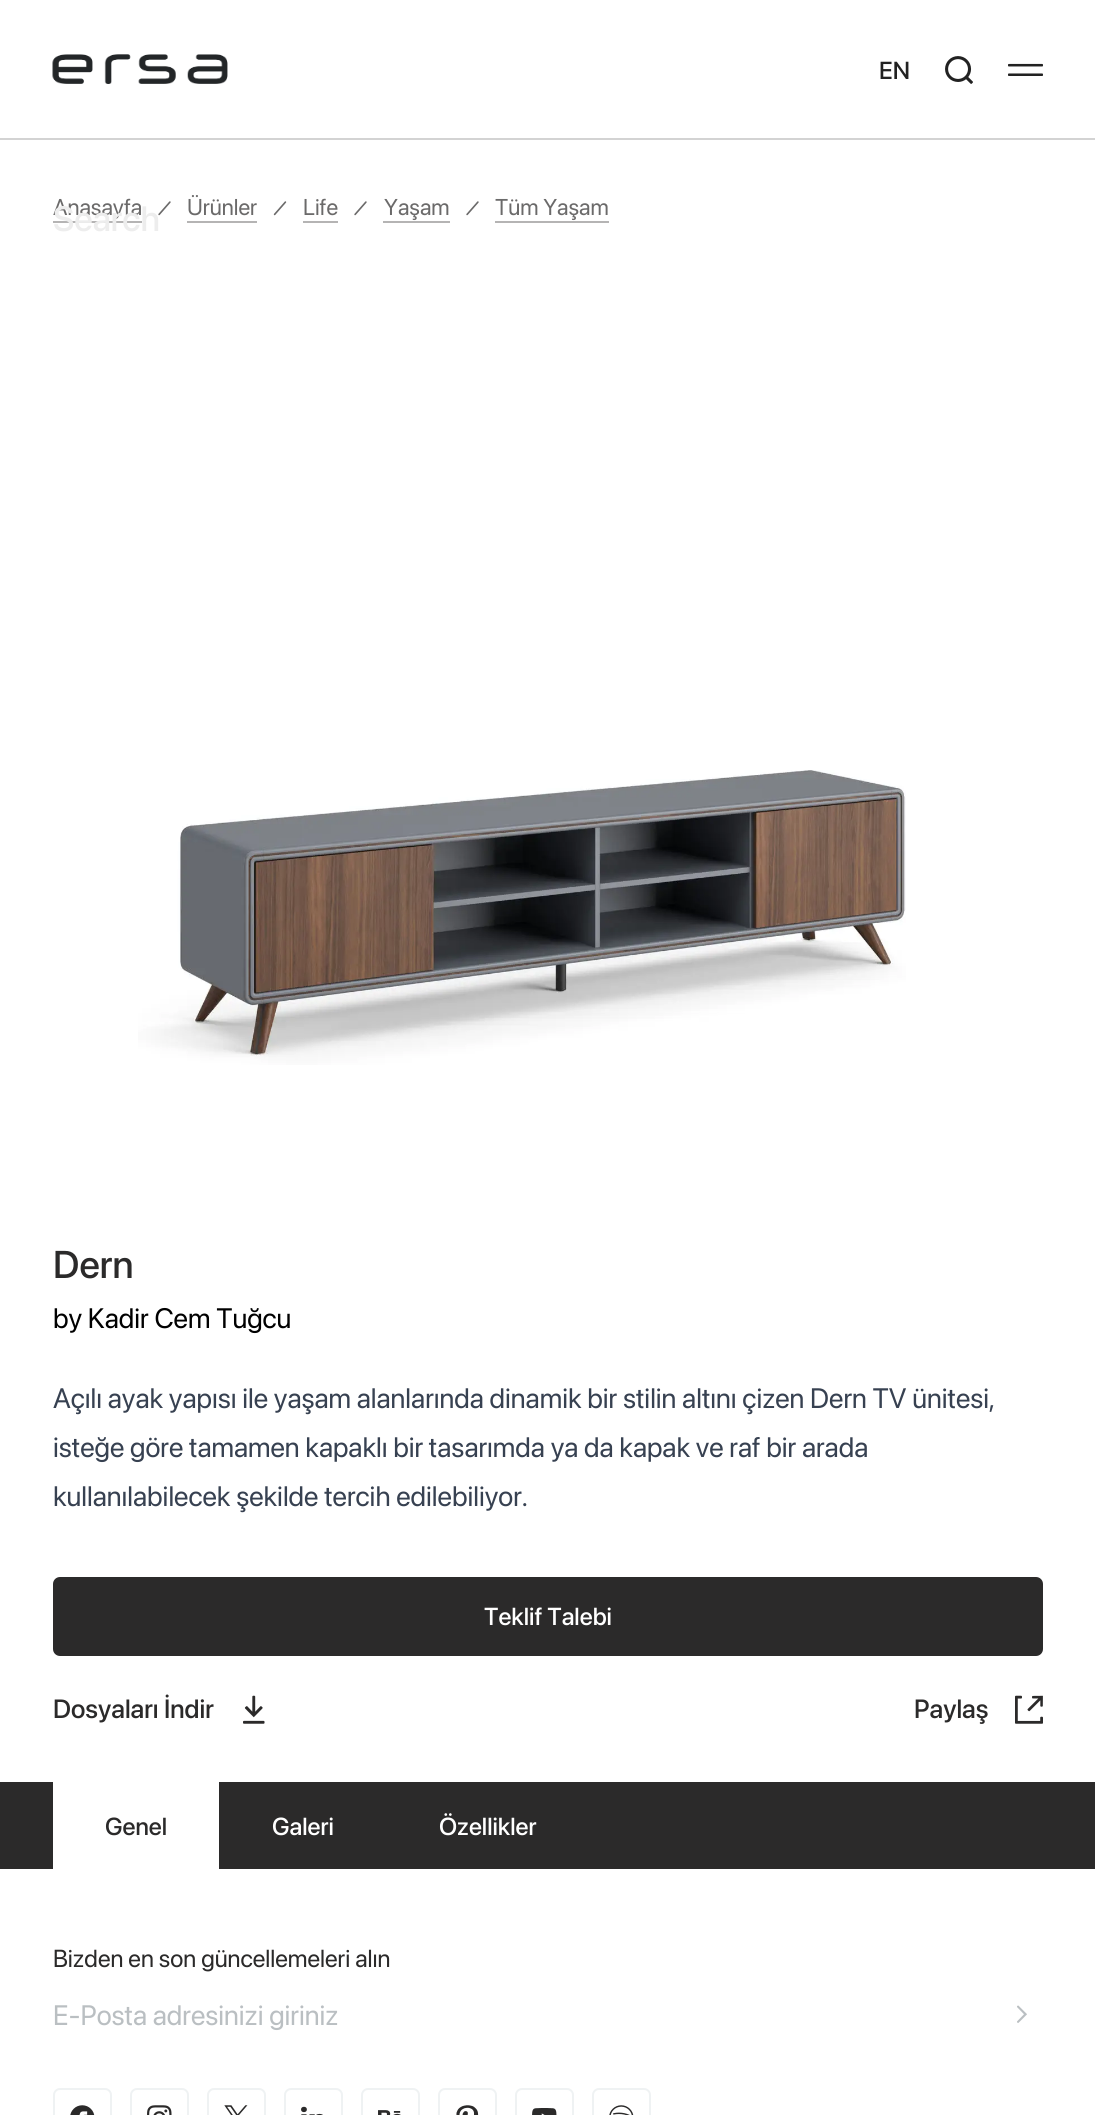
#include <cairo.h>
#include <math.h>
#include <stddef.h>

static cairo_t *ctx;

static void use_color(int r, int g, int b) {
    cairo_set_source_rgb(ctx, r / 255.0, g / 255.0, b / 255.0);
}

static void round_rect(double x, double y, double w, double h, double r) {
    cairo_new_sub_path(ctx);
    cairo_arc(ctx, x + w - r, y + h - r, r, 0, M_PI / 2);
    cairo_arc(ctx, x + r, y + h - r, r, M_PI / 2, M_PI);
    cairo_arc(ctx, x + r, y + r, r, M_PI, 1.5 * M_PI);
    cairo_arc(ctx, x + w - r, y + r, r, 1.5 * M_PI, 2 * M_PI);
    cairo_close_path(ctx);
}

static void picture(const char *path, double x, double y, double w, double h) {
    cairo_surface_t *image = cairo_image_surface_create_from_png(path);
    cairo_save(ctx);
    cairo_set_source_surface(ctx, image, x, y);
    cairo_rectangle(ctx, x, y, w, h);
    cairo_fill(ctx);
    cairo_restore(ctx);
    cairo_surface_destroy(image);
}

int main(void) {
    cairo_surface_t *surface = cairo_image_surface_create(CAIRO_FORMAT_RGB24, 1095, 2115);
    ctx = cairo_create(surface);
    cairo_font_options_t *options = cairo_font_options_create();
    cairo_font_options_set_hint_metrics(options, CAIRO_HINT_METRICS_OFF);
    cairo_font_options_set_hint_style(options, CAIRO_HINT_STYLE_NONE);
    cairo_set_font_options(ctx, options);
    cairo_set_miter_limit(ctx, 4);
    use_color(255, 255, 255);
    cairo_paint(ctx);
    use_color(211, 211, 211);
    cairo_rectangle(ctx, 0, 138, 1095, 2);
    cairo_fill(ctx);
    picture("img1.png", 52, 54, 176, 30);
    cairo_select_font_face(ctx, "SF Pro Display Medium", CAIRO_FONT_SLANT_NORMAL, CAIRO_FONT_WEIGHT_NORMAL);
    cairo_set_font_size(ctx, 24.5);
    use_color(34, 34, 34);
    cairo_move_to(ctx, 879, 79);
    cairo_show_text(ctx, "EN");
    picture("img2.png", 945, 56, 28, 28);
    picture("img3.png", 1008, 63, 35, 13);
    use_color(181, 180, 180);
    cairo_rectangle(ctx, 53, 221, 89, 2);
    cairo_fill(ctx);
    cairo_select_font_face(ctx, "SF Pro Display", CAIRO_FONT_SLANT_NORMAL, CAIRO_FONT_WEIGHT_NORMAL);
    cairo_set_font_size(ctx, 22.75);
    use_color(107, 106, 106);
    cairo_move_to(ctx, 53, 215);
    cairo_show_text(ctx, "Anasayfa");
    cairo_select_font_face(ctx, "SF Pro Display Medium", CAIRO_FONT_SLANT_NORMAL, CAIRO_FONT_WEIGHT_NORMAL);
    cairo_set_font_size(ctx, 35);
    use_color(237, 237, 237);
    cairo_move_to(ctx, 53, 231);
    cairo_show_text(ctx, "Search");
    picture("img4.png", 158, 201, 13, 15);
    use_color(181, 180, 180);
    cairo_rectangle(ctx, 187, 221, 70, 2);
    cairo_fill(ctx);
    cairo_select_font_face(ctx, "SF Pro Display", CAIRO_FONT_SLANT_NORMAL, CAIRO_FONT_WEIGHT_NORMAL);
    cairo_set_font_size(ctx, 22.75);
    use_color(107, 106, 106);
    cairo_move_to(ctx, 187, 215);
    cairo_show_text(ctx, "Ürünler");
    picture("img5.png", 273, 201, 14, 15);
    use_color(181, 180, 180);
    cairo_rectangle(ctx, 303, 221, 35, 2);
    cairo_fill(ctx);
    use_color(107, 106, 106);
    cairo_move_to(ctx, 303, 215);
    cairo_show_text(ctx, "Life");
    picture("img4.png", 354, 201, 13, 15);
    use_color(181, 180, 180);
    cairo_rectangle(ctx, 383, 221, 67, 2);
    cairo_fill(ctx);
    use_color(107, 106, 106);
    cairo_move_to(ctx, 384, 215);
    cairo_show_text(ctx, "Yaşam");
    picture("img4.png", 466, 201, 13, 15);
    use_color(181, 180, 180);
    cairo_rectangle(ctx, 495, 221, 114, 2);
    cairo_fill(ctx);
    use_color(107, 106, 106);
    cairo_move_to(ctx, 495, 215);
    cairo_show_text(ctx, "Tüm Yaşam");
    picture("img6.png", 138, 770, 768, 295);
    cairo_select_font_face(ctx, "SF Pro Display Medium", CAIRO_FONT_SLANT_NORMAL, CAIRO_FONT_WEIGHT_NORMAL);
    cairo_set_font_size(ctx, 38.5);
    use_color(43, 42, 42);
    cairo_move_to(ctx, 53, 1278);
    cairo_show_text(ctx, "Dern");
    cairo_select_font_face(ctx, "SF Pro Display", CAIRO_FONT_SLANT_NORMAL, CAIRO_FONT_WEIGHT_NORMAL);
    cairo_set_font_size(ctx, 28);
    use_color(0, 0, 0);
    cairo_move_to(ctx, 53, 1328);
    cairo_show_text(ctx, "by Kadir Cem Tuğcu");
    use_color(55, 65, 81);
    cairo_move_to(ctx, 53, 1408);
    cairo_show_text(ctx, "Açılı ayak yapısı ile yaşam alanlarında dinamik bir stilin altını çizen Dern TV ünitesi,");
    cairo_move_to(ctx, 53, 1457);
    cairo_show_text(ctx, "isteğe göre tamamen kapaklı bir tasarımda ya da kapak ve raf bir arada");
    cairo_move_to(ctx, 53, 1506);
    cairo_show_text(ctx, "kullanılabilecek şekilde tercih edilebiliyor.");
    use_color(43, 42, 42);
    round_rect(53, 1577, 990, 79, 7);
    cairo_fill(ctx);
    cairo_select_font_face(ctx, "SF Pro Display Medium", CAIRO_FONT_SLANT_NORMAL, CAIRO_FONT_WEIGHT_NORMAL);
    cairo_set_font_size(ctx, 24.5);
    use_color(255, 255, 255);
    cairo_move_to(ctx, 484, 1625);
    cairo_show_text(ctx, "Teklif Talebi");
    cairo_set_font_size(ctx, 26.25);
    use_color(43, 42, 42);
    cairo_move_to(ctx, 53, 1718);
    cairo_show_text(ctx, "Dosyaları İndir");
    picture("img7.png", 243, 1695, 22, 29);
    cairo_move_to(ctx, 914, 1718);
    cairo_show_text(ctx, "Paylaş");
    picture("img8.png", 1015, 1695, 28, 29);
    cairo_rectangle(ctx, 0, 1782, 1095, 87);
    cairo_fill(ctx);
    use_color(255, 255, 255);
    cairo_rectangle(ctx, 53, 1782, 166, 87);
    cairo_fill(ctx);
    cairo_set_font_size(ctx, 24.5);
    use_color(43, 42, 42);
    cairo_move_to(ctx, 105, 1835);
    cairo_show_text(ctx, "Genel");
    use_color(255, 255, 255);
    cairo_move_to(ctx, 272, 1835);
    cairo_show_text(ctx, "Galeri");
    cairo_move_to(ctx, 439, 1835);
    cairo_show_text(ctx, "Özellikler");
    cairo_select_font_face(ctx, "SF Pro Display", CAIRO_FONT_SLANT_NORMAL, CAIRO_FONT_WEIGHT_NORMAL);
    use_color(43, 42, 42);
    cairo_move_to(ctx, 53, 1967);
    cairo_show_text(ctx, "Bizden en son güncellemeleri alın");
    cairo_set_font_size(ctx, 28);
    use_color(186, 191, 194);
    cairo_move_to(ctx, 53, 2025);
    cairo_show_text(ctx, "E-Posta adresinizi giriniz");
    picture("img9.png", 1017, 2005, 10, 18);
    round_rect(54, 2089, 57, 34, 6);
    use_color(239, 242, 243);
    cairo_stroke(ctx);
    picture("img10.png", 70, 2105, 25, 10);
    round_rect(131, 2089, 57, 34, 6);
    cairo_stroke(ctx);
    picture("img11.png", 147, 2105, 25, 10);
    round_rect(208, 2089, 57, 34, 6);
    cairo_stroke(ctx);
    picture("img12.png", 224, 2105, 24, 10);
    round_rect(285, 2089, 57, 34, 6);
    cairo_stroke(ctx);
    picture("img13.png", 301, 2106, 22, 9);
    round_rect(362, 2089, 57, 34, 6);
    cairo_stroke(ctx);
    picture("img14.png", 378, 2110, 23, 5);
    round_rect(439, 2089, 57, 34, 6);
    cairo_stroke(ctx);
    picture("img15.png", 456, 2105, 23, 10);
    round_rect(516, 2089, 57, 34, 6);
    cairo_stroke(ctx);
    picture("img16.png", 532, 2108, 25, 7);
    round_rect(593, 2089, 57, 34, 6);
    cairo_stroke(ctx);
    picture("img17.png", 609, 2105, 25, 10);
    cairo_surface_write_to_png(surface, "result.png");
    cairo_font_options_destroy(options);
    cairo_destroy(ctx);
    cairo_surface_destroy(surface);
    return 0;
}
